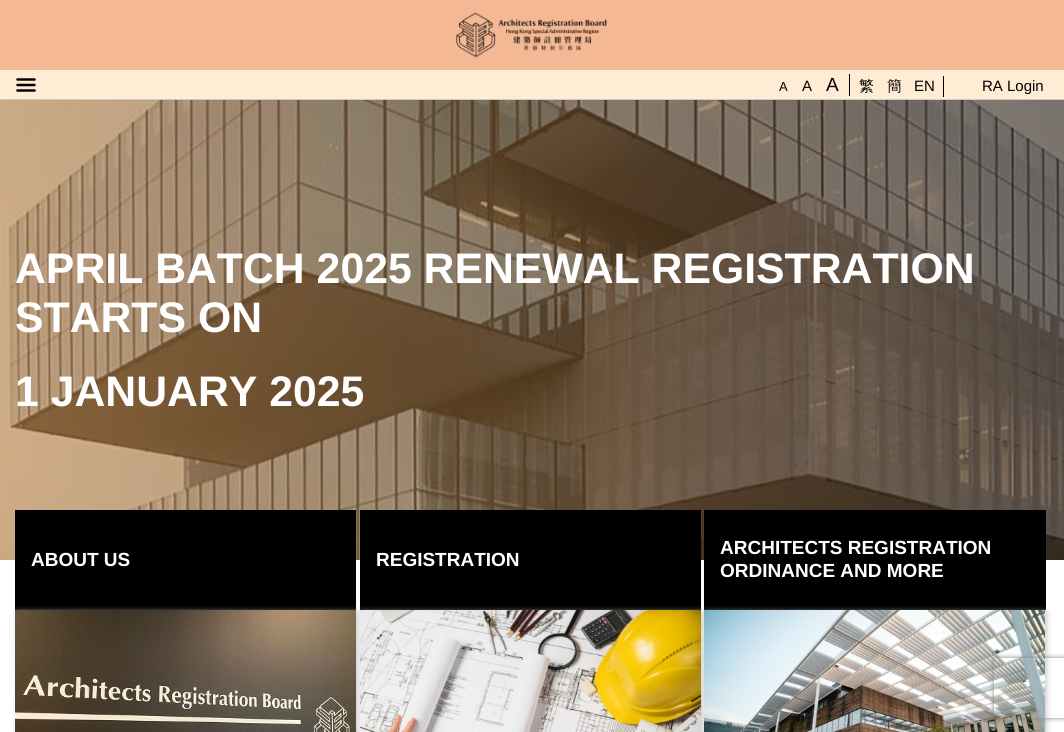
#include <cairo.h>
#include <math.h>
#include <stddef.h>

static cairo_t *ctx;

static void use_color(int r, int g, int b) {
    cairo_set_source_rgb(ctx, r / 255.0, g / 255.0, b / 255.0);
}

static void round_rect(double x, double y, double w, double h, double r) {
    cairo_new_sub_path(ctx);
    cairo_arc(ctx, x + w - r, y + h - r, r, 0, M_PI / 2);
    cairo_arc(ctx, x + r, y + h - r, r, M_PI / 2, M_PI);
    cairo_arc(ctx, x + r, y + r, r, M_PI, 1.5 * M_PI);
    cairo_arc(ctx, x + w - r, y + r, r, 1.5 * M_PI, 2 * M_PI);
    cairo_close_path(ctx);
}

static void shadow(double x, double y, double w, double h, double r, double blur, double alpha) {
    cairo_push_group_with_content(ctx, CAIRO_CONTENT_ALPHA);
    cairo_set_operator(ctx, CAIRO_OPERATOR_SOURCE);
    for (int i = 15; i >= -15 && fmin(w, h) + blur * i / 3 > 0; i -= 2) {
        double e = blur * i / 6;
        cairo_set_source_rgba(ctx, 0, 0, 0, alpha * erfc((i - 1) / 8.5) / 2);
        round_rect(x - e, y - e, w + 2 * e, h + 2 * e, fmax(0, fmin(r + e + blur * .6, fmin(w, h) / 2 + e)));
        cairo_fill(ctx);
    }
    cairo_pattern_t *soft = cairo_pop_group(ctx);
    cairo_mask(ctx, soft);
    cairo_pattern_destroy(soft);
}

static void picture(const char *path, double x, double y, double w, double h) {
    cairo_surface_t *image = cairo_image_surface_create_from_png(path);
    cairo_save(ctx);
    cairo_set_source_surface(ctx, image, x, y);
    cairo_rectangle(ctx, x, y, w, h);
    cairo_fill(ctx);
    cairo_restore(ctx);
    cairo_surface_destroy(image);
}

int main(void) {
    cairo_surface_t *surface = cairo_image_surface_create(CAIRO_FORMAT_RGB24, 1064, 732);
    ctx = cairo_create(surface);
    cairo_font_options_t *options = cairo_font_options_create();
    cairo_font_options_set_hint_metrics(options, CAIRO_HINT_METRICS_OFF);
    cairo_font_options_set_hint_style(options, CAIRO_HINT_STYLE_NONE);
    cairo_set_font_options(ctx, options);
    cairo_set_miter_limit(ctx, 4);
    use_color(255, 255, 255);
    cairo_paint(ctx);
    use_color(245, 184, 149);
    cairo_rectangle(ctx, 0, 0, 1064, 70);
    cairo_fill(ctx);
    picture("img1.png", 456, 12, 151, 46);
    use_color(255, 236, 213);
    cairo_rectangle(ctx, 0, 70, 1064, 29);
    cairo_fill(ctx);
    cairo_new_path(ctx);
    cairo_move_to(ctx, 17.5, 85);
    cairo_line_to(ctx, 34.5, 85);
    cairo_move_to(ctx, 17.5, 79.5);
    cairo_line_to(ctx, 34.5, 79.5);
    cairo_move_to(ctx, 17.5, 90.5);
    cairo_line_to(ctx, 34.5, 90.5);
    use_color(0, 0, 0);
    cairo_set_line_width(ctx, 2.5);
    cairo_set_line_cap(ctx, CAIRO_LINE_CAP_ROUND);
    cairo_set_line_join(ctx, CAIRO_LINE_JOIN_ROUND);
    cairo_stroke(ctx);
    use_color(204, 204, 204);
    cairo_rectangle(ctx, 0, 99, 1064, 1);
    cairo_fill(ctx);
    use_color(0, 0, 0);
    cairo_rectangle(ctx, 849, 74, 1, 22);
    cairo_fill(ctx);
    cairo_select_font_face(ctx, "Liberation Sans", CAIRO_FONT_SLANT_NORMAL, CAIRO_FONT_WEIGHT_NORMAL);
    cairo_set_font_size(ctx, 13);
    cairo_move_to(ctx, 779, 91);
    cairo_show_text(ctx, "A");
    cairo_set_font_size(ctx, 15);
    cairo_move_to(ctx, 802, 91);
    cairo_show_text(ctx, "A");
    cairo_set_font_size(ctx, 19);
    cairo_move_to(ctx, 826, 91);
    cairo_show_text(ctx, "A");
    cairo_rectangle(ctx, 943, 76, 1, 21);
    cairo_fill(ctx);
    cairo_select_font_face(ctx, "WenQuanYi Zen Hei Medium", CAIRO_FONT_SLANT_NORMAL, CAIRO_FONT_WEIGHT_NORMAL);
    cairo_set_font_size(ctx, 15);
    cairo_move_to(ctx, 859, 91);
    cairo_show_text(ctx, "繁");
    cairo_move_to(ctx, 887, 91);
    cairo_show_text(ctx, "簡");
    cairo_select_font_face(ctx, "Liberation Sans", CAIRO_FONT_SLANT_NORMAL, CAIRO_FONT_WEIGHT_NORMAL);
    cairo_move_to(ctx, 914, 91);
    cairo_show_text(ctx, "EN");
    cairo_move_to(ctx, 982, 91);
    cairo_show_text(ctx, "RA Login");
    picture("img2.png", 0, 100, 1064, 460);
    cairo_select_font_face(ctx, "Liberation Sans", CAIRO_FONT_SLANT_NORMAL, CAIRO_FONT_WEIGHT_BOLD);
    cairo_set_font_size(ctx, 42.75);
    use_color(255, 255, 255);
    cairo_move_to(ctx, 15, 283);
    cairo_show_text(ctx, "APRIL BATCH 2025 RENEWAL REGISTRATION");
    cairo_move_to(ctx, 15, 332);
    cairo_show_text(ctx, "STARTS ON");
    cairo_move_to(ctx, 15, 406);
    cairo_show_text(ctx, "1 JANUARY 2025");
    use_color(0, 0, 0);
    cairo_rectangle(ctx, 15, 510, 341, 100);
    cairo_fill(ctx);
    cairo_set_font_size(ctx, 19);
    use_color(255, 255, 255);
    cairo_move_to(ctx, 31, 566);
    cairo_show_text(ctx, "ABOUT US");
    use_color(204, 204, 204);
    shadow(17, 612, 341, 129, 0, 3, 1);
    picture("img3.png", 15, 610, 341, 122);
    use_color(0, 0, 0);
    cairo_rectangle(ctx, 360, 510, 341, 100);
    cairo_fill(ctx);
    use_color(255, 255, 255);
    cairo_move_to(ctx, 376, 566);
    cairo_show_text(ctx, "REGISTRATION");
    use_color(204, 204, 204);
    shadow(362, 612, 341, 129, 0, 3, 1);
    picture("img4.png", 360, 610, 341, 122);
    use_color(0, 0, 0);
    cairo_rectangle(ctx, 704, 510, 342, 100);
    cairo_fill(ctx);
    use_color(255, 255, 255);
    cairo_move_to(ctx, 720, 554);
    cairo_show_text(ctx, "ARCHITECTS REGISTRATION");
    cairo_move_to(ctx, 720, 577);
    cairo_show_text(ctx, "ORDINANCE AND MORE");
    use_color(204, 204, 204);
    shadow(706, 612, 341, 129, 0, 3, 1);
    picture("img5.png", 704, 610, 341, 122);
    cairo_save(ctx);
    cairo_set_fill_rule(ctx, CAIRO_FILL_RULE_EVEN_ODD);
    cairo_new_path(ctx);
    cairo_move_to(ctx, 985, 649);
    cairo_line_to(ctx, 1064, 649);
    cairo_line_to(ctx, 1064, 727);
    cairo_line_to(ctx, 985, 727);
    cairo_close_path(ctx);
    cairo_move_to(ctx, 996, 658);
    cairo_line_to(ctx, 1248, 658);
    cairo_curve_to(ctx, 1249, 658, 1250, 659, 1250, 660);
    cairo_line_to(ctx, 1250, 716);
    cairo_curve_to(ctx, 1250, 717, 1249, 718, 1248, 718);
    cairo_line_to(ctx, 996, 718);
    cairo_curve_to(ctx, 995, 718, 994, 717, 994, 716);
    cairo_line_to(ctx, 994, 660);
    cairo_curve_to(ctx, 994, 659, 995, 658, 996, 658);
    cairo_close_path(ctx);
    cairo_clip(ctx);
    use_color(128, 128, 128);
    shadow(994, 658, 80, 60, 2, 2.5, 1);
    cairo_restore(ctx);
    cairo_surface_write_to_png(surface, "result.png");
    cairo_font_options_destroy(options);
    cairo_destroy(ctx);
    cairo_surface_destroy(surface);
    return 0;
}
